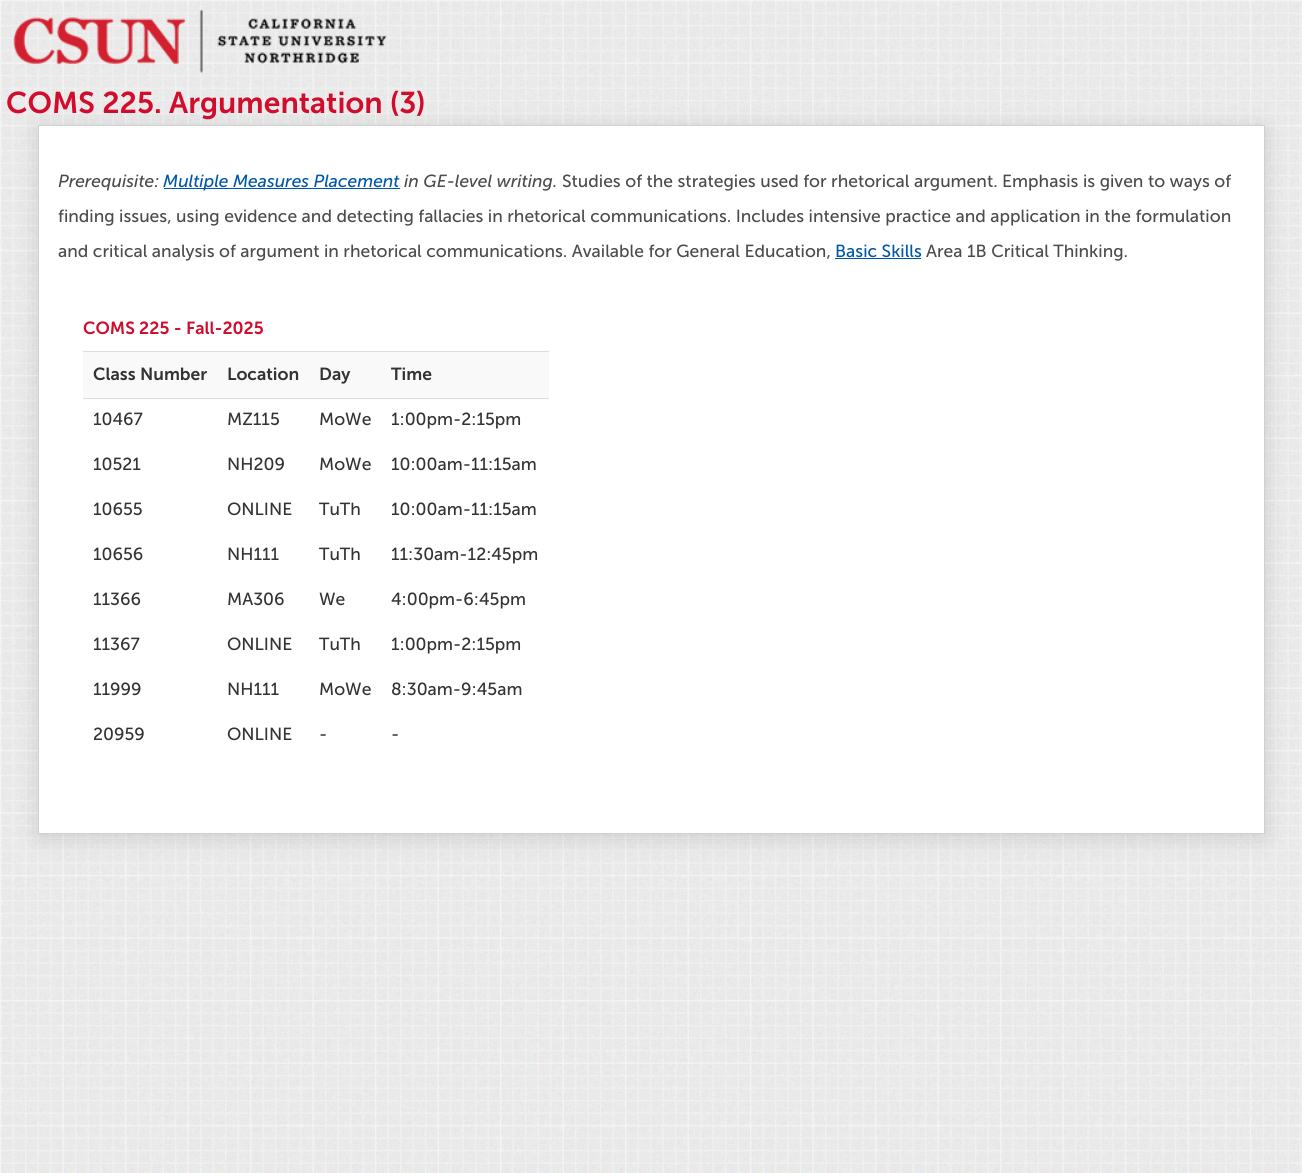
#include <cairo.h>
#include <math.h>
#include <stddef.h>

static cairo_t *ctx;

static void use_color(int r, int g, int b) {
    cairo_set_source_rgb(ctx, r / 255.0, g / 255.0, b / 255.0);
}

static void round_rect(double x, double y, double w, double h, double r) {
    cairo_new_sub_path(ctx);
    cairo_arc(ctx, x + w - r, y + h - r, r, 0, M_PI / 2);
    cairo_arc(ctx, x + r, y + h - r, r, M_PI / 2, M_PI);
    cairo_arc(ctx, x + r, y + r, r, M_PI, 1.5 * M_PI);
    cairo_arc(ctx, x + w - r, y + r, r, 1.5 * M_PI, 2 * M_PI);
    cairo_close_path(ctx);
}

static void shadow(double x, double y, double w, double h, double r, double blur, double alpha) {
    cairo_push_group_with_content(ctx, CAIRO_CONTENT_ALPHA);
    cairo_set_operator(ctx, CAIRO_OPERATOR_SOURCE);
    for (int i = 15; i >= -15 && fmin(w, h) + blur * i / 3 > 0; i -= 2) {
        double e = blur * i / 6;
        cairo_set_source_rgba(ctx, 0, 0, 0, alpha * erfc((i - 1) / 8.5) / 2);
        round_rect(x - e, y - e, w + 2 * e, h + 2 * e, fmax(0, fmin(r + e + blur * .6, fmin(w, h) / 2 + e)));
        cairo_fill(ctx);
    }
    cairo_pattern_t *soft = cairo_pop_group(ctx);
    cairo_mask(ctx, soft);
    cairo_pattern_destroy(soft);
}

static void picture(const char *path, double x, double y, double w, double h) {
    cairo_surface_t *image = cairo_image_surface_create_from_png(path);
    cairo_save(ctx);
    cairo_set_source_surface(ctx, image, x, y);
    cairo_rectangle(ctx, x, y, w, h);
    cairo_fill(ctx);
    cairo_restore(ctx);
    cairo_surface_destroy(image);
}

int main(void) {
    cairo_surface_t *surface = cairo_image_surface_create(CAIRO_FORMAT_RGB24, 1302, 1173);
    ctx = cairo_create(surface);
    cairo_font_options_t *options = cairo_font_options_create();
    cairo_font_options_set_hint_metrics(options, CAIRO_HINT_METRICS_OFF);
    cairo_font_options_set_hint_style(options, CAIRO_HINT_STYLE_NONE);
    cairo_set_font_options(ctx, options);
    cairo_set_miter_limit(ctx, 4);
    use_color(255, 255, 255);
    cairo_paint(ctx);
    picture("img1.png", 0, 834, 1302, 339);
    picture("img2.png", 0, 0, 1302, 834);
    picture("img3.png", 13, 10, 374, 63);
    use_color(50, 50, 50);
    shadow(38, 129, 1227, 709, 0, 12, 0.16);
    cairo_select_font_face(ctx, "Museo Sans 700 SemiBold", CAIRO_FONT_SLANT_NORMAL, CAIRO_FONT_WEIGHT_NORMAL);
    cairo_set_font_size(ctx, 30);
    use_color(208, 13, 45);
    cairo_move_to(ctx, 6, 113);
    cairo_show_text(ctx, "COMS 225. Argumentation (3)");
    use_color(255, 255, 255);
    cairo_rectangle(ctx, 38.5, 125.5, 1226, 708);
    cairo_fill_preserve(ctx);
    use_color(208, 208, 208);
    cairo_set_line_width(ctx, 1);
    cairo_stroke(ctx);
    cairo_select_font_face(ctx, "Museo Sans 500", CAIRO_FONT_SLANT_ITALIC, CAIRO_FONT_WEIGHT_NORMAL);
    cairo_set_font_size(ctx, 17.5);
    use_color(76, 76, 76);
    cairo_move_to(ctx, 58, 187);
    cairo_show_text(ctx, "Prerequisite:");
    use_color(0, 87, 169);
    cairo_rectangle(ctx, 164, 188, 236, 1);
    cairo_fill(ctx);
    cairo_move_to(ctx, 163, 187);
    cairo_show_text(ctx, "Multiple Measures Placement");
    use_color(76, 76, 76);
    cairo_move_to(ctx, 404, 187);
    cairo_show_text(ctx, "in GE-level writing.");
    cairo_select_font_face(ctx, "Museo Sans 500", CAIRO_FONT_SLANT_NORMAL, CAIRO_FONT_WEIGHT_NORMAL);
    cairo_move_to(ctx, 562, 187);
    cairo_show_text(ctx, "Studies of the strategies used for rhetorical argument. Emphasis is given to ways of");
    cairo_move_to(ctx, 58, 222);
    cairo_show_text(ctx, "finding issues, using evidence and detecting fallacies in rhetorical communications. Includes intensive practice and application in the formulation");
    cairo_move_to(ctx, 58, 257);
    cairo_show_text(ctx, "and critical analysis of argument in rhetorical communications. Available for General Education,");
    use_color(0, 87, 169);
    cairo_move_to(ctx, 835, 257);
    cairo_show_text(ctx, "Basic Skills");
    cairo_rectangle(ctx, 835, 258, 86, 1);
    cairo_fill(ctx);
    use_color(76, 76, 76);
    cairo_move_to(ctx, 926, 257);
    cairo_show_text(ctx, "Area 1B Critical Thinking.");
    cairo_select_font_face(ctx, "Museo Sans 700 SemiBold", CAIRO_FONT_SLANT_NORMAL, CAIRO_FONT_WEIGHT_NORMAL);
    use_color(208, 13, 45);
    cairo_move_to(ctx, 83, 334);
    cairo_show_text(ctx, "COMS 225 - Fall-2025");
    use_color(249, 249, 249);
    cairo_rectangle(ctx, 83, 352, 466, 46);
    cairo_fill(ctx);
    use_color(51, 51, 51);
    cairo_move_to(ctx, 93, 380);
    cairo_show_text(ctx, "Class Number");
    cairo_move_to(ctx, 227, 380);
    cairo_show_text(ctx, "Location");
    cairo_move_to(ctx, 319, 380);
    cairo_show_text(ctx, "Day");
    use_color(221, 221, 221);
    cairo_rectangle(ctx, 83, 351, 466, 1);
    cairo_fill(ctx);
    cairo_rectangle(ctx, 83, 398, 466, 1);
    cairo_fill(ctx);
    use_color(51, 51, 51);
    cairo_move_to(ctx, 391, 380);
    cairo_show_text(ctx, "Time");
    cairo_select_font_face(ctx, "Museo Sans 500", CAIRO_FONT_SLANT_NORMAL, CAIRO_FONT_WEIGHT_NORMAL);
    cairo_move_to(ctx, 93, 425);
    cairo_show_text(ctx, "10467");
    cairo_move_to(ctx, 227, 425);
    cairo_show_text(ctx, "MZ115");
    cairo_move_to(ctx, 319, 425);
    cairo_show_text(ctx, "MoWe");
    cairo_move_to(ctx, 391, 425);
    cairo_show_text(ctx, "1:00pm-2:15pm");
    cairo_move_to(ctx, 93, 470);
    cairo_show_text(ctx, "10521");
    cairo_move_to(ctx, 227, 470);
    cairo_show_text(ctx, "NH209");
    cairo_move_to(ctx, 319, 470);
    cairo_show_text(ctx, "MoWe");
    cairo_move_to(ctx, 391, 470);
    cairo_show_text(ctx, "10:00am-11:15am");
    cairo_move_to(ctx, 93, 515);
    cairo_show_text(ctx, "10655");
    cairo_move_to(ctx, 227, 515);
    cairo_show_text(ctx, "ONLINE");
    cairo_move_to(ctx, 319, 515);
    cairo_show_text(ctx, "TuTh");
    cairo_move_to(ctx, 391, 515);
    cairo_show_text(ctx, "10:00am-11:15am");
    cairo_move_to(ctx, 93, 560);
    cairo_show_text(ctx, "10656");
    cairo_move_to(ctx, 227, 560);
    cairo_show_text(ctx, "NH111");
    cairo_move_to(ctx, 319, 560);
    cairo_show_text(ctx, "TuTh");
    cairo_move_to(ctx, 391, 560);
    cairo_show_text(ctx, "11:30am-12:45pm");
    cairo_move_to(ctx, 93, 605);
    cairo_show_text(ctx, "11366");
    cairo_move_to(ctx, 227, 605);
    cairo_show_text(ctx, "MA306");
    cairo_move_to(ctx, 319, 605);
    cairo_show_text(ctx, "We");
    cairo_move_to(ctx, 391, 605);
    cairo_show_text(ctx, "4:00pm-6:45pm");
    cairo_move_to(ctx, 93, 650);
    cairo_show_text(ctx, "11367");
    cairo_move_to(ctx, 227, 650);
    cairo_show_text(ctx, "ONLINE");
    cairo_move_to(ctx, 319, 650);
    cairo_show_text(ctx, "TuTh");
    cairo_move_to(ctx, 391, 650);
    cairo_show_text(ctx, "1:00pm-2:15pm");
    cairo_move_to(ctx, 93, 695);
    cairo_show_text(ctx, "11999");
    cairo_move_to(ctx, 227, 695);
    cairo_show_text(ctx, "NH111");
    cairo_move_to(ctx, 319, 695);
    cairo_show_text(ctx, "MoWe");
    cairo_move_to(ctx, 391, 695);
    cairo_show_text(ctx, "8:30am-9:45am");
    cairo_move_to(ctx, 93, 740);
    cairo_show_text(ctx, "20959");
    cairo_move_to(ctx, 227, 740);
    cairo_show_text(ctx, "ONLINE");
    cairo_move_to(ctx, 319, 740);
    cairo_show_text(ctx, "-");
    cairo_move_to(ctx, 391, 740);
    cairo_show_text(ctx, "-");
    cairo_surface_write_to_png(surface, "result.png");
    cairo_font_options_destroy(options);
    cairo_destroy(ctx);
    cairo_surface_destroy(surface);
    return 0;
}
